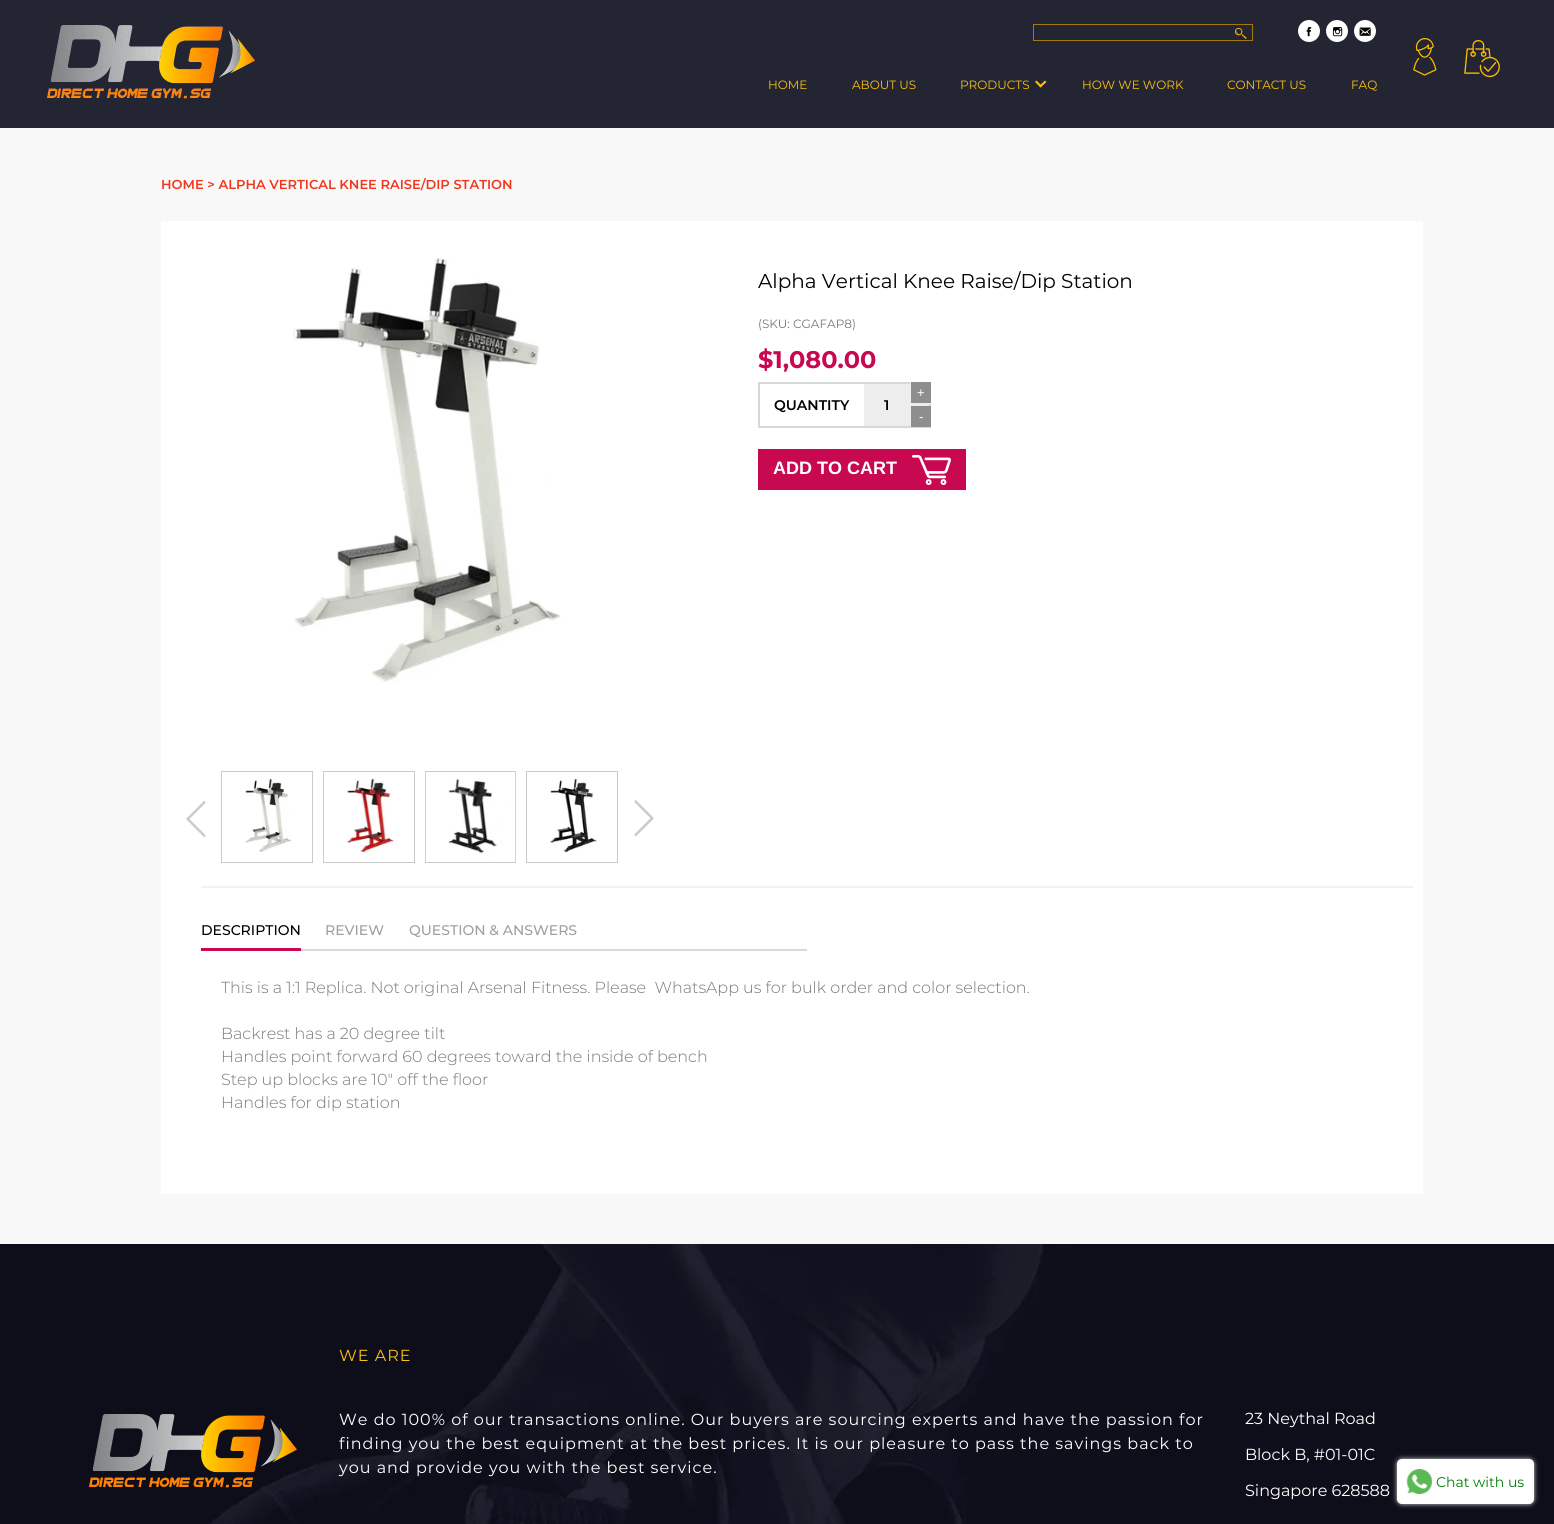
#include <cairo.h>
#include <math.h>
#include <stddef.h>

static cairo_t *ctx;

static void use_color(int r, int g, int b) {
    cairo_set_source_rgb(ctx, r / 255.0, g / 255.0, b / 255.0);
}

static void spaced_text(double x, double y, const char *s, double letter, double word) {
    cairo_move_to(ctx, x, y);
    while (*s) {
        char ch[5] = {0};
        int n = 0;
        do ch[n++] = *s++; while ((*s & 0xC0) == 0x80);
        cairo_show_text(ctx, ch);
        cairo_rel_move_to(ctx, letter + word * (*ch == ' '), 0);
    }
}

static void round_rect(double x, double y, double w, double h, double r) {
    cairo_new_sub_path(ctx);
    cairo_arc(ctx, x + w - r, y + h - r, r, 0, M_PI / 2);
    cairo_arc(ctx, x + r, y + h - r, r, M_PI / 2, M_PI);
    cairo_arc(ctx, x + r, y + r, r, M_PI, 1.5 * M_PI);
    cairo_arc(ctx, x + w - r, y + r, r, 1.5 * M_PI, 2 * M_PI);
    cairo_close_path(ctx);
}

static void shadow(double x, double y, double w, double h, double r, double blur, double alpha) {
    cairo_push_group_with_content(ctx, CAIRO_CONTENT_ALPHA);
    cairo_set_operator(ctx, CAIRO_OPERATOR_SOURCE);
    for (int i = 15; i >= -15 && fmin(w, h) + blur * i / 3 > 0; i -= 2) {
        double e = blur * i / 6;
        cairo_set_source_rgba(ctx, 0, 0, 0, alpha * erfc((i - 1) / 8.5) / 2);
        round_rect(x - e, y - e, w + 2 * e, h + 2 * e, fmax(0, fmin(r + e + blur * .6, fmin(w, h) / 2 + e)));
        cairo_fill(ctx);
    }
    cairo_pattern_t *soft = cairo_pop_group(ctx);
    cairo_mask(ctx, soft);
    cairo_pattern_destroy(soft);
}

static void picture(const char *path, double x, double y, double w, double h) {
    cairo_surface_t *image = cairo_image_surface_create_from_png(path);
    cairo_save(ctx);
    cairo_set_source_surface(ctx, image, x, y);
    cairo_rectangle(ctx, x, y, w, h);
    cairo_fill(ctx);
    cairo_restore(ctx);
    cairo_surface_destroy(image);
}

int main(void) {
    cairo_surface_t *surface = cairo_image_surface_create(CAIRO_FORMAT_RGB24, 1554, 1524);
    ctx = cairo_create(surface);
    cairo_font_options_t *options = cairo_font_options_create();
    cairo_font_options_set_hint_metrics(options, CAIRO_HINT_METRICS_OFF);
    cairo_font_options_set_hint_style(options, CAIRO_HINT_STYLE_NONE);
    cairo_set_font_options(ctx, options);
    cairo_set_miter_limit(ctx, 4);
    use_color(36, 37, 51);
    cairo_paint(ctx);
    picture("img1.png", 47, 25, 208, 74);
    picture("img2.png", 1413, 38, 24, 38);
    picture("img3.png", 1464, 40, 36, 38);
    cairo_rectangle(ctx, 1033.5, 24.5, 219, 16);
    use_color(162, 122, 15);
    cairo_set_line_width(ctx, 1);
    cairo_stroke(ctx);
    picture("img4.png", 1235, 27, 12, 12);
    use_color(255, 255, 255);
    cairo_arc(ctx, 1309, 31, 11, 0, 2 * M_PI);
    cairo_fill(ctx);
    picture("img5.png", 1306, 27, 6, 10);
    cairo_arc(ctx, 1337, 31, 11, 0, 2 * M_PI);
    cairo_fill(ctx);
    picture("img6.png", 1332, 27, 11, 10);
    cairo_arc(ctx, 1365, 31, 11, 0, 2 * M_PI);
    cairo_fill(ctx);
    picture("img7.png", 1359, 27, 12, 9);
    cairo_select_font_face(ctx, "Montserrat", CAIRO_FONT_SLANT_NORMAL, CAIRO_FONT_WEIGHT_NORMAL);
    cairo_set_font_size(ctx, 12);
    use_color(251, 194, 16);
    cairo_move_to(ctx, 768, 89);
    cairo_show_text(ctx, "HOME");
    cairo_move_to(ctx, 852, 89);
    cairo_show_text(ctx, "ABOUT US");
    cairo_move_to(ctx, 960, 89);
    cairo_show_text(ctx, "PRODUCTS");
    use_color(255, 188, 0);
    cairo_new_path(ctx);
    cairo_move_to(ctx, 1045, 80.5);
    cairo_line_to(ctx, 1046.5, 82);
    cairo_line_to(ctx, 1040.5, 87.5);
    cairo_line_to(ctx, 1039, 86);
    cairo_close_path(ctx);
    cairo_fill(ctx);
    cairo_new_path(ctx);
    cairo_move_to(ctx, 1036.5, 80.5);
    cairo_line_to(ctx, 1042, 86);
    cairo_line_to(ctx, 1040.5, 87.5);
    cairo_line_to(ctx, 1035, 82);
    cairo_close_path(ctx);
    cairo_fill(ctx);
    use_color(251, 194, 16);
    cairo_move_to(ctx, 1082, 89);
    cairo_show_text(ctx, "HOW WE WORK");
    cairo_move_to(ctx, 1227, 89);
    cairo_show_text(ctx, "CONTACT US");
    cairo_move_to(ctx, 1351, 89);
    cairo_show_text(ctx, "FAQ");
    use_color(248, 248, 248);
    cairo_rectangle(ctx, 0, 128, 1554, 1116);
    cairo_fill(ctx);
    cairo_select_font_face(ctx, "Montserrat SemiBold", CAIRO_FONT_SLANT_NORMAL, CAIRO_FONT_WEIGHT_NORMAL);
    cairo_set_font_size(ctx, 13);
    use_color(241, 56, 31);
    cairo_move_to(ctx, 161, 189);
    cairo_show_text(ctx, "HOME > ALPHA VERTICAL KNEE RAISE/DIP STATION");
    use_color(255, 255, 255);
    cairo_rectangle(ctx, 161, 221, 1262, 973);
    cairo_fill(ctx);
    picture("img8.png", 293, 258, 268, 425);
    cairo_rectangle(ctx, 221.5, 771.5, 91, 91);
    use_color(202, 202, 202);
    cairo_stroke(ctx);
    picture("img9.png", 245, 778, 47, 74);
    cairo_rectangle(ctx, 323.5, 771.5, 91, 91);
    cairo_stroke(ctx);
    picture("img10.png", 323, 772, 75, 90);
    cairo_rectangle(ctx, 425.5, 771.5, 90, 91);
    cairo_stroke(ctx);
    picture("img11.png", 425, 772, 91, 90);
    cairo_rectangle(ctx, 526.5, 771.5, 91, 91);
    cairo_stroke(ctx);
    picture("img12.png", 550, 778, 47, 75);
    picture("img13.png", 186, 801, 20, 36);
    picture("img14.png", 634, 800, 20, 37);
    cairo_select_font_face(ctx, "Montserrat", CAIRO_FONT_SLANT_NORMAL, CAIRO_FONT_WEIGHT_NORMAL);
    cairo_set_font_size(ctx, 20);
    use_color(0, 0, 0);
    cairo_move_to(ctx, 758, 288);
    cairo_show_text(ctx, "Alpha Vertical Knee Raise/Dip Station");
    cairo_set_font_size(ctx, 12);
    use_color(120, 120, 120);
    cairo_move_to(ctx, 758, 328);
    cairo_show_text(ctx, "(SKU: CGAFAP8)");
    cairo_select_font_face(ctx, "Montserrat", CAIRO_FONT_SLANT_NORMAL, CAIRO_FONT_WEIGHT_BOLD);
    cairo_set_font_size(ctx, 24);
    use_color(200, 8, 80);
    cairo_move_to(ctx, 758, 368);
    cairo_show_text(ctx, "$1,080.00");
    use_color(215, 215, 215);
    cairo_rectangle(ctx, 758, 382, 152, 2);
    cairo_fill(ctx);
    cairo_rectangle(ctx, 758, 426, 173, 2);
    cairo_fill(ctx);
    cairo_rectangle(ctx, 758, 382, 2, 46);
    cairo_fill(ctx);
    cairo_select_font_face(ctx, "Montserrat SemiBold", CAIRO_FONT_SLANT_NORMAL, CAIRO_FONT_WEIGHT_NORMAL);
    cairo_set_font_size(ctx, 14);
    use_color(0, 0, 0);
    cairo_move_to(ctx, 774, 410);
    cairo_show_text(ctx, "QUANTITY");
    use_color(237, 237, 237);
    cairo_rectangle(ctx, 864, 384, 65, 42);
    cairo_fill(ctx);
    use_color(215, 215, 215);
    cairo_rectangle(ctx, 929, 404, 2, 2);
    cairo_fill(ctx);
    use_color(0, 0, 0);
    cairo_move_to(ctx, 884, 410);
    cairo_show_text(ctx, "1");
    use_color(142, 142, 142);
    cairo_rectangle(ctx, 911, 382, 20, 21);
    cairo_fill(ctx);
    use_color(238, 238, 238);
    cairo_rectangle(ctx, 929, 403, 2, 1);
    cairo_fill(ctx);
    cairo_rectangle(ctx, 910, 382, 1, 2);
    cairo_fill(ctx);
    cairo_select_font_face(ctx, "Liberation Sans", CAIRO_FONT_SLANT_NORMAL, CAIRO_FONT_WEIGHT_NORMAL);
    cairo_set_font_size(ctx, 13);
    use_color(255, 255, 255);
    cairo_move_to(ctx, 917, 397);
    cairo_show_text(ctx, "+");
    use_color(142, 142, 142);
    cairo_rectangle(ctx, 911, 406, 20, 21);
    cairo_fill(ctx);
    use_color(238, 238, 238);
    cairo_rectangle(ctx, 910, 426, 1, 1);
    cairo_fill(ctx);
    use_color(255, 255, 255);
    cairo_move_to(ctx, 919, 421);
    cairo_show_text(ctx, "-");
    use_color(200, 8, 80);
    cairo_rectangle(ctx, 758, 449, 208, 41);
    cairo_fill(ctx);
    cairo_select_font_face(ctx, "Liberation Sans", CAIRO_FONT_SLANT_NORMAL, CAIRO_FONT_WEIGHT_BOLD);
    cairo_set_font_size(ctx, 18);
    use_color(255, 255, 255);
    cairo_move_to(ctx, 773, 474);
    cairo_show_text(ctx, "ADD TO CART");
    picture("img15.png", 912, 455, 39, 30);
    use_color(242, 242, 242);
    cairo_rectangle(ctx, 201, 886, 1212, 2);
    cairo_fill(ctx);
    use_color(217, 217, 217);
    cairo_rectangle(ctx, 301, 949, 506, 2);
    cairo_fill(ctx);
    use_color(200, 8, 80);
    cairo_rectangle(ctx, 201, 948, 100, 3);
    cairo_fill(ctx);
    cairo_select_font_face(ctx, "Montserrat Medium", CAIRO_FONT_SLANT_NORMAL, CAIRO_FONT_WEIGHT_NORMAL);
    cairo_set_font_size(ctx, 14);
    use_color(0, 0, 0);
    cairo_move_to(ctx, 201, 935);
    cairo_show_text(ctx, "DESCRIPTION");
    use_color(160, 160, 160);
    cairo_move_to(ctx, 325, 935);
    cairo_show_text(ctx, "REVIEW");
    cairo_move_to(ctx, 409, 935);
    cairo_show_text(ctx, "QUESTION & ANSWERS");
    cairo_select_font_face(ctx, "Montserrat Light", CAIRO_FONT_SLANT_NORMAL, CAIRO_FONT_WEIGHT_NORMAL);
    cairo_set_font_size(ctx, 16);
    use_color(120, 120, 120);
    cairo_move_to(ctx, 221, 993);
    cairo_show_text(ctx, "This is a 1:1 Replica. Not original Arsenal Fitness. Please  WhatsApp us for bulk order and color selection.");
    cairo_move_to(ctx, 221, 1039);
    cairo_show_text(ctx, "Backrest has a 20 degree tilt");
    cairo_move_to(ctx, 221, 1062);
    cairo_show_text(ctx, "Handles point forward 60 degrees toward the inside of bench");
    cairo_move_to(ctx, 221, 1085);
    cairo_show_text(ctx, "Step up blocks are 10″ off the floor");
    cairo_move_to(ctx, 221, 1108);
    cairo_show_text(ctx, "Handles for dip station");
    picture("img16.png", 0, 1244, 1554, 280);
    picture("img17.png", 89, 1414, 208, 74);
    cairo_select_font_face(ctx, "Montserrat", CAIRO_FONT_SLANT_NORMAL, CAIRO_FONT_WEIGHT_NORMAL);
    use_color(251, 194, 16);
    spaced_text(339, 1361, "WE ARE", 1, 0);
    use_color(255, 255, 255);
    spaced_text(339, 1425, "We do 100% of our transactions online. Our buyers are sourcing experts and have the passion for", 1, 0);
    spaced_text(339, 1449, "finding you the best equipment at the best prices. It is our pleasure to pass the savings back to", 1, 0);
    spaced_text(339, 1473, "you and provide you with the best service.", 1, 0);
    cairo_move_to(ctx, 1245, 1424);
    cairo_show_text(ctx, "23 Neythal Road");
    cairo_move_to(ctx, 1245, 1460);
    cairo_show_text(ctx, "Block B, #01-01C");
    cairo_move_to(ctx, 1245, 1496);
    cairo_show_text(ctx, "Singapore 628588");
    use_color(211, 211, 211);
    shadow(1397, 1459, 137, 45, 5, 2.5, 1);
    use_color(255, 255, 255);
    round_rect(1397, 1459, 137, 45, 5);
    cairo_fill(ctx);
    picture("img18.png", 1406, 1469, 26, 25);
    cairo_set_font_size(ctx, 14);
    use_color(0, 128, 0);
    cairo_move_to(ctx, 1436, 1487);
    cairo_show_text(ctx, "Chat with us");
    cairo_surface_write_to_png(surface, "result.png");
    cairo_font_options_destroy(options);
    cairo_destroy(ctx);
    cairo_surface_destroy(surface);
    return 0;
}
